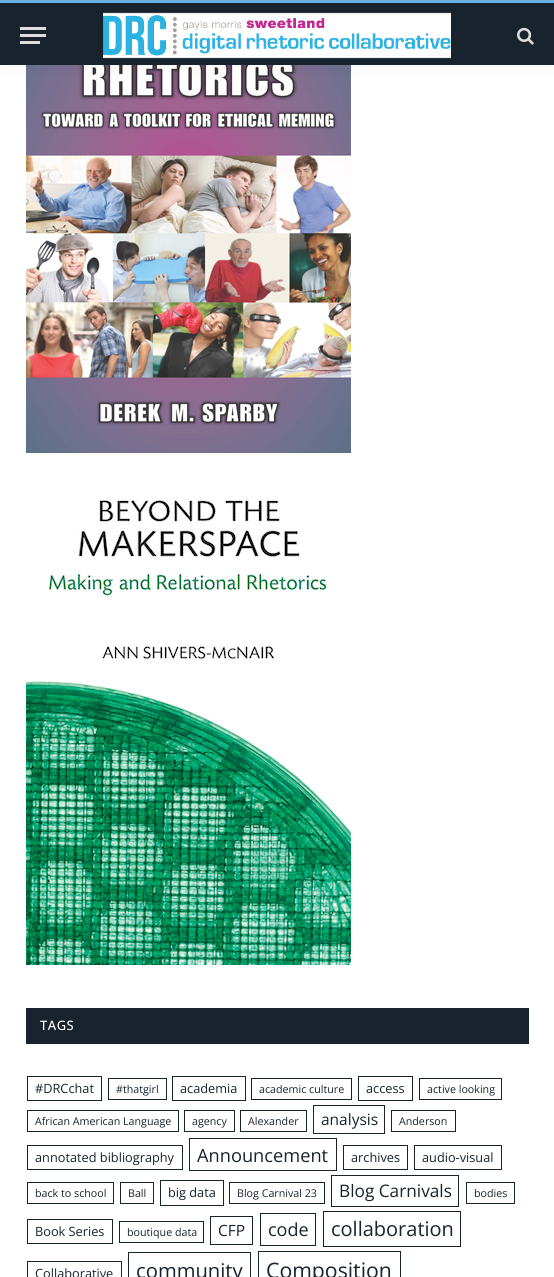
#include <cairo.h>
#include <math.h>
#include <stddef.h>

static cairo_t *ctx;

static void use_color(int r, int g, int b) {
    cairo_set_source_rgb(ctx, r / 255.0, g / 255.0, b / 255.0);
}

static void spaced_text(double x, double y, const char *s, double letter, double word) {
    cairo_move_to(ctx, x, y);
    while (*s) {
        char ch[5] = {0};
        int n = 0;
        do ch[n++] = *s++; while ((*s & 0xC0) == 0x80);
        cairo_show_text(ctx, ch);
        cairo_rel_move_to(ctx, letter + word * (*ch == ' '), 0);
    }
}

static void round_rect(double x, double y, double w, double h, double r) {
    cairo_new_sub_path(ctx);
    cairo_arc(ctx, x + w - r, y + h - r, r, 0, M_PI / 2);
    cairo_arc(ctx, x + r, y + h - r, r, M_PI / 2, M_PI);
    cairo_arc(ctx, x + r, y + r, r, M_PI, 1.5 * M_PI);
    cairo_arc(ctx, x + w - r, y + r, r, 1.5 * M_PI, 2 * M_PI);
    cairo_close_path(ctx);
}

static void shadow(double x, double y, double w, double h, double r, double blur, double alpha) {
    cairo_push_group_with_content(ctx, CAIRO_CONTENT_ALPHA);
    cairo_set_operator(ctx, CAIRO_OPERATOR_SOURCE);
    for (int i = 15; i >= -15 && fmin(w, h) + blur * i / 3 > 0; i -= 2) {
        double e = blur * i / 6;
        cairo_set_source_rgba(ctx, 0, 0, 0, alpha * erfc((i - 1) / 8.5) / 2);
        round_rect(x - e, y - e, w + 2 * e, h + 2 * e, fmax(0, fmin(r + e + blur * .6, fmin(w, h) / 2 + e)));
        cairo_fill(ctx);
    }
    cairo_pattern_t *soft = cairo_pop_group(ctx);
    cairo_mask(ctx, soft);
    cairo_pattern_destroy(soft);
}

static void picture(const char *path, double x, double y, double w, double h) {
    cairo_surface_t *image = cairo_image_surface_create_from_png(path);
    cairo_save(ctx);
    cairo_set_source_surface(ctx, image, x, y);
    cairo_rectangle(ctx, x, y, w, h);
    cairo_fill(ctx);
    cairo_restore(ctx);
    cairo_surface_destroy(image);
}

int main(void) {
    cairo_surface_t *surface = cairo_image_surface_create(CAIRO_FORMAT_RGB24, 554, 1277);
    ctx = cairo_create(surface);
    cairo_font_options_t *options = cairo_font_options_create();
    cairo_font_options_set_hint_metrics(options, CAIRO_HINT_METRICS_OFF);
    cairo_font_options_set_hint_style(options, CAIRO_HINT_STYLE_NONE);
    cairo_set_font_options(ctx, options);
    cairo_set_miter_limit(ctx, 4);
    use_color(255, 255, 255);
    cairo_paint(ctx);
    picture("img3.png", 26, 65, 325, 388);
    use_color(0, 0, 0);
    shadow(0, 0, 554, 65, 0, 10, 0.05);
    use_color(25, 35, 45);
    cairo_rectangle(ctx, 0, 3, 554, 62);
    cairo_fill(ctx);
    use_color(107, 178, 224);
    cairo_rectangle(ctx, 0, 0, 554, 3);
    cairo_fill(ctx);
    use_color(221, 221, 221);
    cairo_rectangle(ctx, 20, 41, 20, 3);
    cairo_fill(ctx);
    cairo_rectangle(ctx, 20, 27, 26, 3);
    cairo_fill(ctx);
    cairo_rectangle(ctx, 20, 34, 26, 3);
    cairo_fill(ctx);
    picture("img1.png", 103, 12, 348, 47);
    picture("img2.png", 517, 27, 17, 18);
    picture("img4.png", 26, 500, 325, 465);
    use_color(25, 35, 45);
    cairo_rectangle(ctx, 26, 1008, 503, 36);
    cairo_fill(ctx);
    cairo_select_font_face(ctx, "Open Sans Medium", CAIRO_FONT_SLANT_NORMAL, CAIRO_FONT_WEIGHT_NORMAL);
    cairo_set_font_size(ctx, 13);
    use_color(255, 255, 255);
    spaced_text(40, 1030, "TAGS", 0.5, 0);
    cairo_rectangle(ctx, 27.5, 1076.5, 74, 24);
    use_color(25, 35, 45);
    cairo_set_line_width(ctx, 1);
    cairo_stroke(ctx);
    cairo_select_font_face(ctx, "Open Sans", CAIRO_FONT_SLANT_NORMAL, CAIRO_FONT_WEIGHT_NORMAL);
    cairo_set_font_size(ctx, 12.75);
    cairo_move_to(ctx, 35, 1093);
    cairo_show_text(ctx, "#DRCchat");
    cairo_rectangle(ctx, 108.5, 1078.5, 58, 21);
    cairo_stroke(ctx);
    cairo_set_font_size(ctx, 10.7);
    cairo_move_to(ctx, 116, 1093);
    cairo_show_text(ctx, "#thatgirl");
    cairo_rectangle(ctx, 172.5, 1076.5, 73, 24);
    cairo_stroke(ctx);
    cairo_set_font_size(ctx, 12.75);
    cairo_move_to(ctx, 180, 1093);
    cairo_show_text(ctx, "academia");
    cairo_rectangle(ctx, 251.5, 1078.5, 100, 21);
    cairo_stroke(ctx);
    cairo_set_font_size(ctx, 10.7);
    cairo_move_to(ctx, 259, 1093);
    cairo_show_text(ctx, "academic culture");
    cairo_rectangle(ctx, 358.5, 1076.5, 54, 24);
    cairo_stroke(ctx);
    cairo_set_font_size(ctx, 12.75);
    cairo_move_to(ctx, 366, 1093);
    cairo_show_text(ctx, "access");
    cairo_rectangle(ctx, 419.5, 1078.5, 82, 21);
    cairo_stroke(ctx);
    cairo_set_font_size(ctx, 10.7);
    cairo_move_to(ctx, 427, 1093);
    cairo_show_text(ctx, "active looking");
    cairo_rectangle(ctx, 27.5, 1110.5, 151, 21);
    cairo_stroke(ctx);
    cairo_move_to(ctx, 35, 1125);
    cairo_show_text(ctx, "African American Language");
    cairo_rectangle(ctx, 184.5, 1110.5, 50, 21);
    cairo_stroke(ctx);
    cairo_move_to(ctx, 192, 1125);
    cairo_show_text(ctx, "agency");
    cairo_rectangle(ctx, 240.5, 1110.5, 66, 21);
    cairo_stroke(ctx);
    cairo_move_to(ctx, 248, 1125);
    cairo_show_text(ctx, "Alexander");
    cairo_rectangle(ctx, 313.5, 1105.5, 71, 28);
    cairo_stroke(ctx);
    cairo_set_font_size(ctx, 15.5);
    cairo_move_to(ctx, 321, 1125);
    cairo_show_text(ctx, "analysis");
    cairo_rectangle(ctx, 391.5, 1110.5, 64, 21);
    cairo_stroke(ctx);
    cairo_set_font_size(ctx, 10.7);
    cairo_move_to(ctx, 399, 1125);
    cairo_show_text(ctx, "Anderson");
    cairo_rectangle(ctx, 27.5, 1145.5, 155, 24);
    cairo_stroke(ctx);
    cairo_set_font_size(ctx, 12.75);
    cairo_move_to(ctx, 35, 1162);
    cairo_show_text(ctx, "annotated bibliography");
    cairo_rectangle(ctx, 189.5, 1138.5, 147, 32);
    cairo_stroke(ctx);
    cairo_set_font_size(ctx, 18.25);
    cairo_move_to(ctx, 197, 1162);
    cairo_show_text(ctx, "Announcement");
    cairo_rectangle(ctx, 343.5, 1145.5, 64, 24);
    cairo_stroke(ctx);
    cairo_set_font_size(ctx, 12.75);
    cairo_move_to(ctx, 351, 1162);
    cairo_show_text(ctx, "archives");
    cairo_rectangle(ctx, 414.5, 1145.5, 87, 24);
    cairo_stroke(ctx);
    cairo_move_to(ctx, 422, 1162);
    cairo_show_text(ctx, "audio-visual");
    cairo_rectangle(ctx, 27.5, 1182.5, 86, 21);
    cairo_stroke(ctx);
    cairo_set_font_size(ctx, 10.7);
    cairo_move_to(ctx, 35, 1197);
    cairo_show_text(ctx, "back to school");
    cairo_rectangle(ctx, 120.5, 1182.5, 33, 21);
    cairo_stroke(ctx);
    cairo_move_to(ctx, 128, 1197);
    cairo_show_text(ctx, "Ball");
    cairo_rectangle(ctx, 160.5, 1180.5, 63, 25);
    cairo_stroke(ctx);
    cairo_set_font_size(ctx, 12.75);
    cairo_move_to(ctx, 168, 1197);
    cairo_show_text(ctx, "big data");
    cairo_rectangle(ctx, 229.5, 1182.5, 95, 21);
    cairo_stroke(ctx);
    cairo_set_font_size(ctx, 10.7);
    cairo_move_to(ctx, 237, 1197);
    cairo_show_text(ctx, "Blog Carnival 23");
    cairo_rectangle(ctx, 331.5, 1175.5, 127, 31);
    cairo_stroke(ctx);
    cairo_set_font_size(ctx, 17.25);
    cairo_move_to(ctx, 339, 1197);
    cairo_show_text(ctx, "Blog Carnivals");
    cairo_rectangle(ctx, 466.5, 1182.5, 48, 21);
    cairo_stroke(ctx);
    cairo_set_font_size(ctx, 10.7);
    cairo_move_to(ctx, 474, 1197);
    cairo_show_text(ctx, "bodies");
    cairo_rectangle(ctx, 27.5, 1219.5, 85, 24);
    cairo_stroke(ctx);
    cairo_set_font_size(ctx, 12.75);
    cairo_move_to(ctx, 35, 1236);
    cairo_show_text(ctx, "Book Series");
    cairo_rectangle(ctx, 119.5, 1221.5, 84, 21);
    cairo_stroke(ctx);
    cairo_set_font_size(ctx, 10.7);
    cairo_move_to(ctx, 127, 1236);
    cairo_show_text(ctx, "boutique data");
    cairo_rectangle(ctx, 210.5, 1216.5, 42, 28);
    cairo_stroke(ctx);
    cairo_set_font_size(ctx, 15.5);
    cairo_move_to(ctx, 218, 1236);
    cairo_show_text(ctx, "CFP");
    cairo_rectangle(ctx, 260.5, 1213.5, 55, 32);
    cairo_stroke(ctx);
    cairo_set_font_size(ctx, 18);
    cairo_move_to(ctx, 268, 1236);
    cairo_show_text(ctx, "code");
    cairo_rectangle(ctx, 323.5, 1211.5, 137, 35);
    cairo_stroke(ctx);
    cairo_set_font_size(ctx, 20);
    cairo_move_to(ctx, 331, 1236);
    cairo_show_text(ctx, "collaboration");
    cairo_rectangle(ctx, 27.5, 1261.5, 94, 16);
    cairo_stroke(ctx);
    cairo_set_font_size(ctx, 12.75);
    cairo_move_to(ctx, 35, 1278);
    cairo_show_text(ctx, "Collaborative");
    cairo_rectangle(ctx, 128.5, 1252.5, 122, 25);
    cairo_stroke(ctx);
    cairo_set_font_size(ctx, 20.25);
    cairo_move_to(ctx, 136, 1278);
    cairo_show_text(ctx, "community");
    cairo_rectangle(ctx, 258.5, 1251.5, 142, 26);
    cairo_stroke(ctx);
    cairo_set_font_size(ctx, 21.25);
    cairo_move_to(ctx, 266, 1278);
    cairo_show_text(ctx, "Composition");
    cairo_surface_write_to_png(surface, "result.png");
    cairo_font_options_destroy(options);
    cairo_destroy(ctx);
    cairo_surface_destroy(surface);
    return 0;
}
